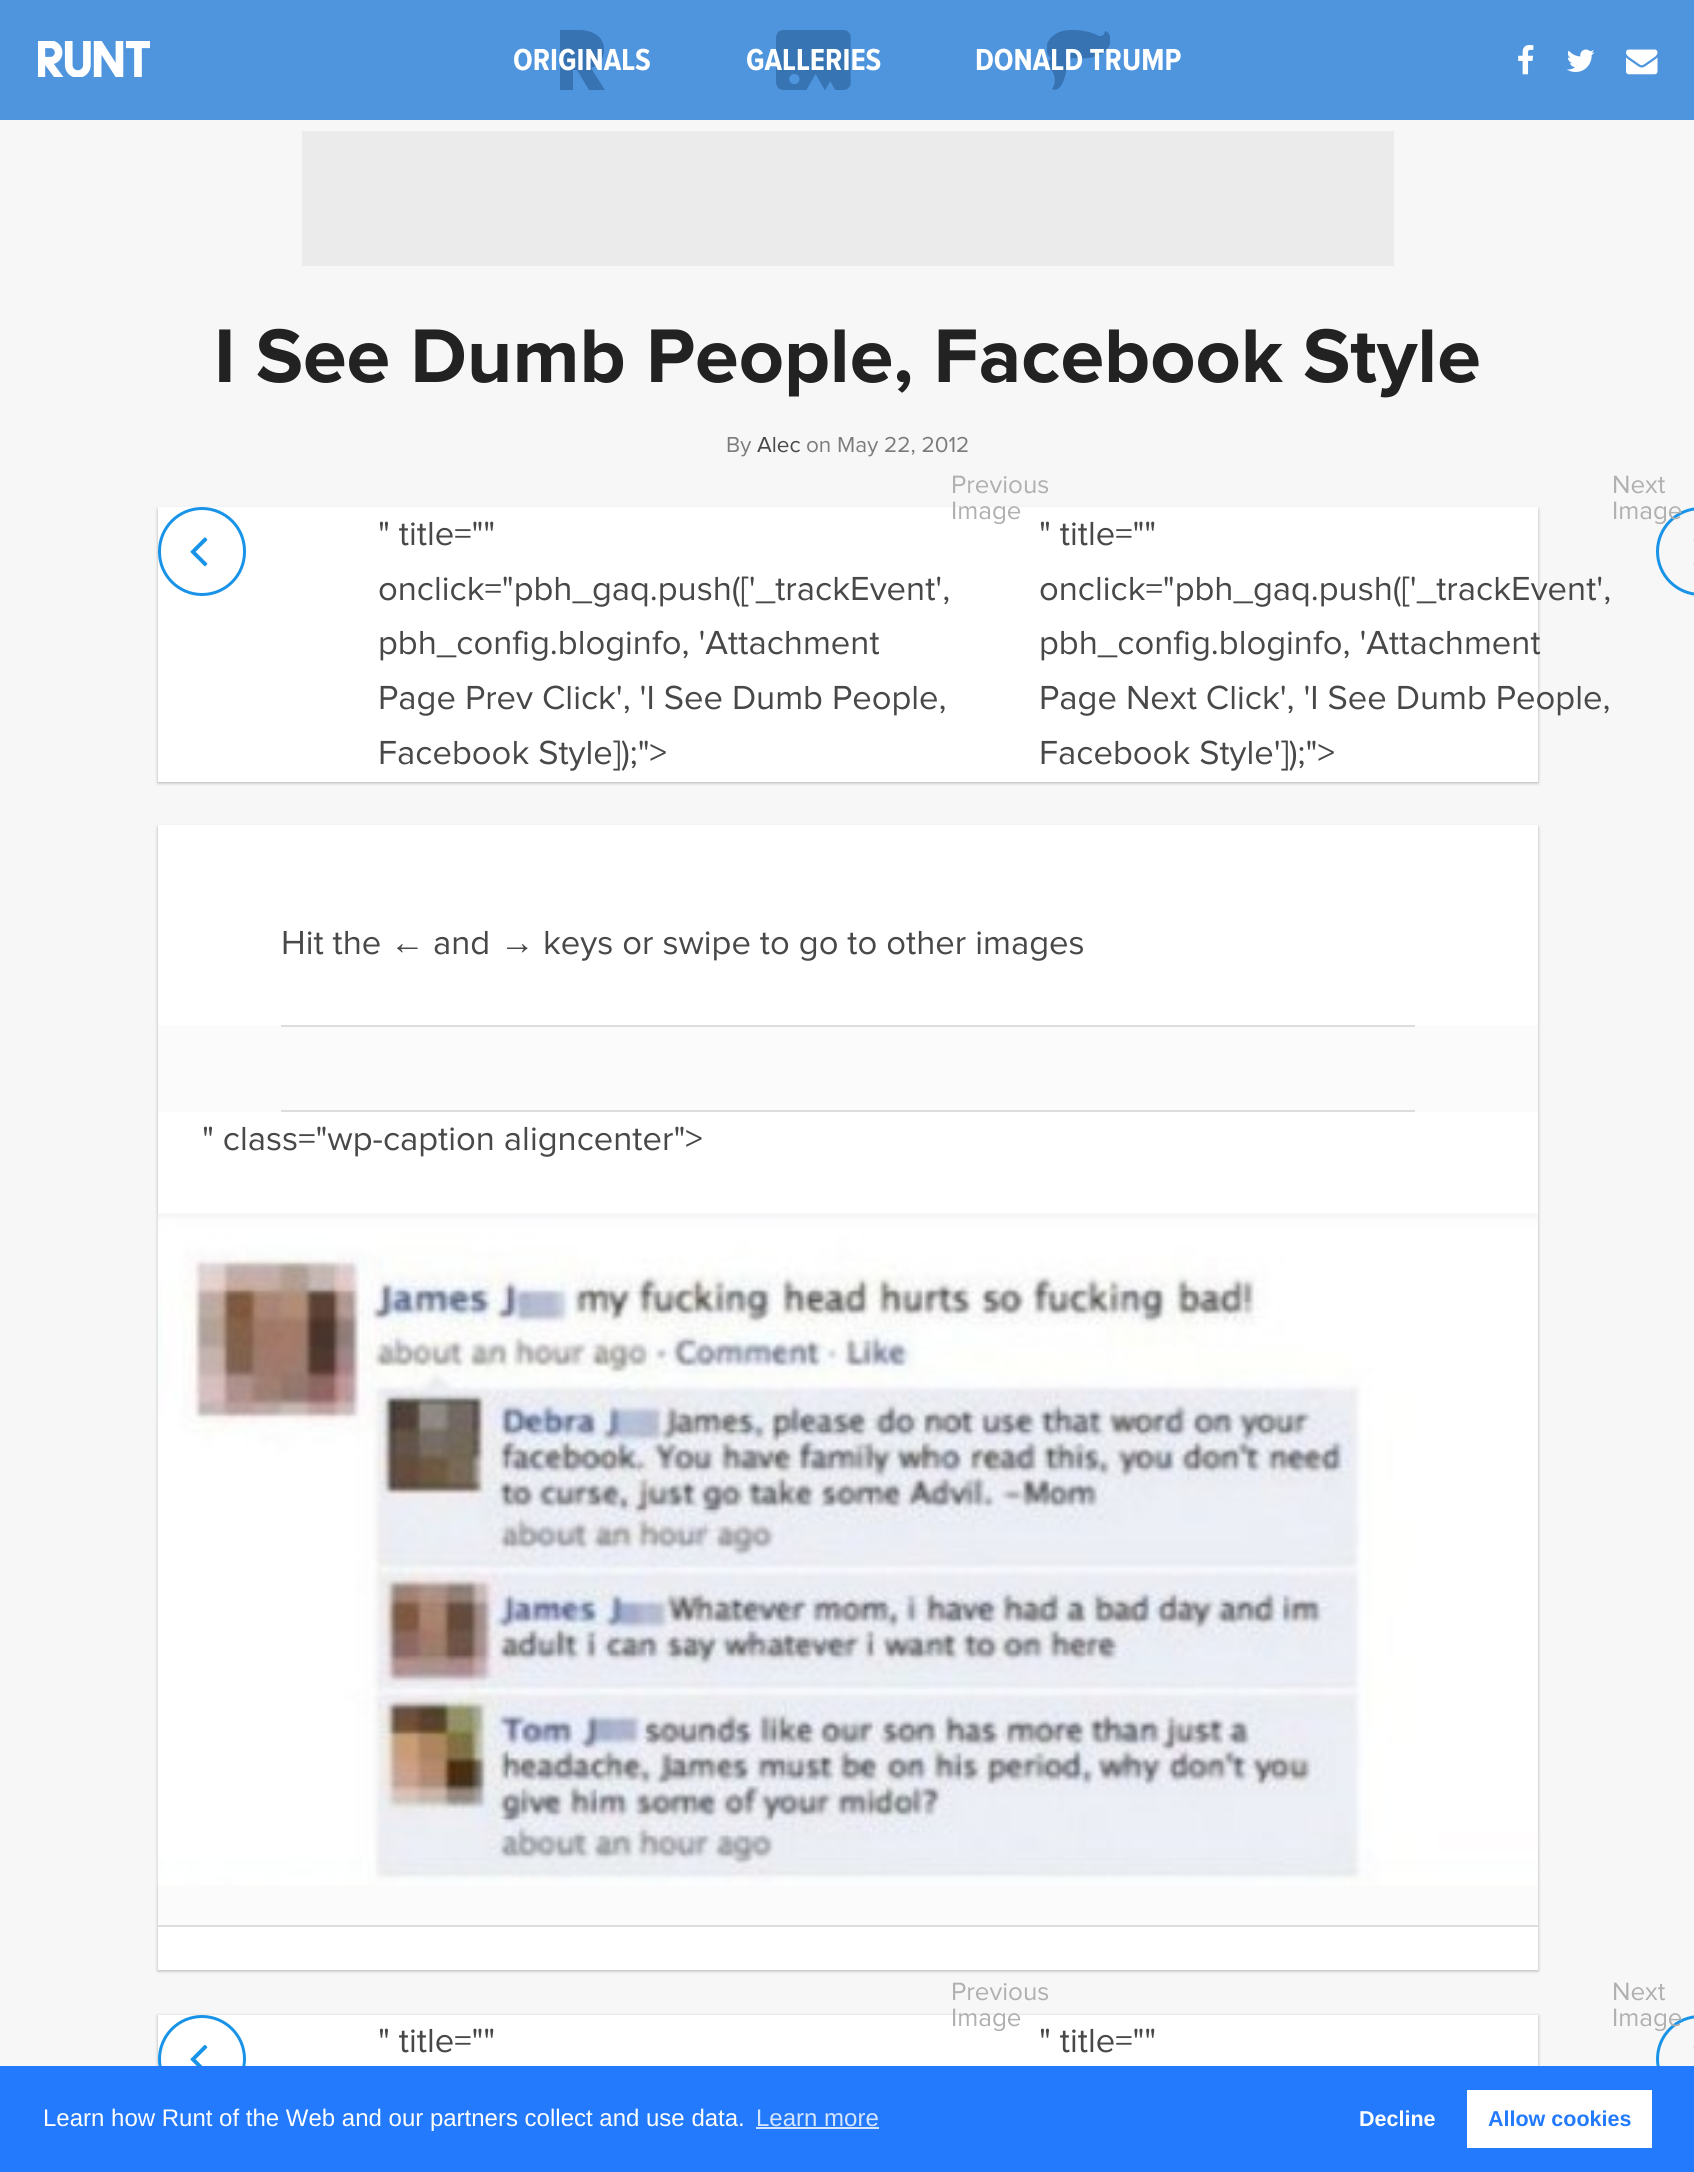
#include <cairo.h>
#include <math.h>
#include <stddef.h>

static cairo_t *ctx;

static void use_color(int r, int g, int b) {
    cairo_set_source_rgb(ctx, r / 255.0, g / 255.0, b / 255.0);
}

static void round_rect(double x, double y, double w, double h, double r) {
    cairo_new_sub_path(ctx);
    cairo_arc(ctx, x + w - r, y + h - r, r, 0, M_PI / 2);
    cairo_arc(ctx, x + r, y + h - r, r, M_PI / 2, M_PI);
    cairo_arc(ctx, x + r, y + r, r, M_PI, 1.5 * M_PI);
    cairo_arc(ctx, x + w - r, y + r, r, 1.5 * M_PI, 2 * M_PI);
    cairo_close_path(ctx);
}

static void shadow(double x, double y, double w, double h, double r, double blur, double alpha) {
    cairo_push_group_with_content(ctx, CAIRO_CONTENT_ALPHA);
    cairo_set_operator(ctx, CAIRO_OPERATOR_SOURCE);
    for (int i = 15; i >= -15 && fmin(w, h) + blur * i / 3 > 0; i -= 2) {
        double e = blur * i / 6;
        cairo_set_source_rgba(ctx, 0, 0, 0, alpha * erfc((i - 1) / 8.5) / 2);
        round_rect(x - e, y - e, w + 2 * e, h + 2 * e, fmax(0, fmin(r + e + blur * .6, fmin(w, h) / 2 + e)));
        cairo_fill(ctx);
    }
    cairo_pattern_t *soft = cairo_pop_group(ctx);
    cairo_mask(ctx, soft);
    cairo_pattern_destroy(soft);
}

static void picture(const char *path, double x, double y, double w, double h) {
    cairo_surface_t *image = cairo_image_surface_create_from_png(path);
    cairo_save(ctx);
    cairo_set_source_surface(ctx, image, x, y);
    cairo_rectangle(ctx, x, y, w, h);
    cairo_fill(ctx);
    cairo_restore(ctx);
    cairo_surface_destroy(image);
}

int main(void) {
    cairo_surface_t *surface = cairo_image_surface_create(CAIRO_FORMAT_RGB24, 1694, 2172);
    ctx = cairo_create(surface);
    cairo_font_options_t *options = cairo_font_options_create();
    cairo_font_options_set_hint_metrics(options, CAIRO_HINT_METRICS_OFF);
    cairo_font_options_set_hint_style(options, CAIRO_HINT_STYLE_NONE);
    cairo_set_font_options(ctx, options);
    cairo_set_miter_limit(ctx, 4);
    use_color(247, 247, 247);
    cairo_paint(ctx);
    use_color(79, 149, 222);
    cairo_rectangle(ctx, 0, 0, 1694, 120);
    cairo_fill(ctx);
    picture("img1.png", 38, 41, 112, 36);
    cairo_save(ctx);
    cairo_rectangle(ctx, 560, 30, 45, 60);
    cairo_clip(ctx);
    use_color(55, 115, 179);
    cairo_set_fill_rule(ctx, CAIRO_FILL_RULE_EVEN_ODD);
    cairo_new_path(ctx);
    cairo_move_to(ctx, 591, 68);
    cairo_curve_to(ctx, 606, 64, 609, 41, 595, 34);
    cairo_curve_to(ctx, 586, 28, 570, 30, 559, 30);
    cairo_line_to(ctx, 559, 90);
    cairo_line_to(ctx, 573, 90);
    cairo_line_to(ctx, 573, 70);
    cairo_line_to(ctx, 577, 70);
    cairo_line_to(ctx, 589, 90);
    cairo_line_to(ctx, 605, 90);
    cairo_close_path(ctx);
    cairo_fill(ctx);
    cairo_restore(ctx);
    cairo_select_font_face(ctx, "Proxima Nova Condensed", CAIRO_FONT_SLANT_NORMAL, CAIRO_FONT_WEIGHT_BOLD);
    cairo_set_font_size(ctx, 31.5);
    use_color(255, 255, 255);
    cairo_move_to(ctx, 513, 70);
    cairo_show_text(ctx, "ORIGINALS");
    picture("img2.png", 776, 30, 75, 60);
    cairo_move_to(ctx, 746, 70);
    cairo_show_text(ctx, "GALLERIES");
    cairo_save(ctx);
    cairo_rectangle(ctx, 1047, 30, 63, 60);
    cairo_clip(ctx);
    use_color(55, 115, 179);
    cairo_set_fill_rule(ctx, CAIRO_FILL_RULE_EVEN_ODD);
    cairo_new_path(ctx);
    cairo_move_to(ctx, 1052, 89);
    cairo_curve_to(ctx, 1052, 89, 1062, 96, 1067, 68);
    cairo_curve_to(ctx, 1068, 63, 1071, 58, 1073, 58);
    cairo_curve_to(ctx, 1073, 58, 1109, 63, 1111, 39);
    cairo_curve_to(ctx, 1109, 31, 1105, 31, 1105, 31);
    cairo_curve_to(ctx, 1105, 31, 1104, 39, 1097, 35);
    cairo_curve_to(ctx, 1090, 31, 1065, 26, 1054, 35);
    cairo_curve_to(ctx, 1044, 42, 1045, 54, 1051, 58);
    cairo_curve_to(ctx, 1042, 65, 1062, 74, 1052, 89);
    cairo_close_path(ctx);
    cairo_fill(ctx);
    cairo_restore(ctx);
    cairo_move_to(ctx, 975, 70);
    cairo_show_text(ctx, "DONALD TRUMP");
    picture("img3.png", 1518, 45, 16, 30);
    picture("img4.png", 1567, 49, 28, 23);
    picture("img5.png", 1626, 49, 32, 26);
    use_color(235, 235, 235);
    cairo_rectangle(ctx, 302, 131, 1092, 135);
    cairo_fill(ctx);
    cairo_select_font_face(ctx, "Proxima Nova", CAIRO_FONT_SLANT_NORMAL, CAIRO_FONT_WEIGHT_BOLD);
    cairo_set_font_size(ctx, 78.75);
    use_color(34, 34, 34);
    cairo_move_to(ctx, 214, 382);
    cairo_show_text(ctx, "I See Dumb People, Facebook Style");
    cairo_select_font_face(ctx, "Proxima Nova", CAIRO_FONT_SLANT_NORMAL, CAIRO_FONT_WEIGHT_NORMAL);
    cairo_set_font_size(ctx, 22.5);
    use_color(124, 124, 124);
    cairo_move_to(ctx, 726, 452);
    cairo_show_text(ctx, "By");
    use_color(72, 72, 72);
    cairo_move_to(ctx, 757, 452);
    cairo_show_text(ctx, "Alec");
    use_color(124, 124, 124);
    cairo_move_to(ctx, 806, 452);
    cairo_show_text(ctx, "on May 22, 2012");
    use_color(0, 0, 0);
    shadow(158, 509, 1380, 274, 0, 1.5, 0.18);
    shadow(158, 509, 1380, 274, 0, 2, 0.12);
    use_color(255, 255, 255);
    cairo_rectangle(ctx, 158, 507, 1380, 275);
    cairo_fill(ctx);
    cairo_set_font_size(ctx, 26);
    use_color(176, 176, 176);
    cairo_move_to(ctx, 951, 493);
    cairo_show_text(ctx, "Previous");
    cairo_move_to(ctx, 951, 519);
    cairo_show_text(ctx, "Image");
    cairo_move_to(ctx, 1612, 493);
    cairo_show_text(ctx, "Next");
    round_rect(1657.5, 508.5, 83, 86, 43);
    use_color(24, 147, 231);
    cairo_set_line_width(ctx, 3);
    cairo_stroke(ctx);
    use_color(176, 176, 176);
    cairo_move_to(ctx, 1612, 519);
    cairo_show_text(ctx, "Image");
    round_rect(159.5, 508.5, 85, 86, 42.5);
    use_color(24, 147, 231);
    cairo_stroke(ctx);
    picture("img6.png", 190, 537, 18, 30);
    cairo_set_font_size(ctx, 34.6);
    use_color(72, 72, 72);
    cairo_move_to(ctx, 378, 545);
    cairo_show_text(ctx, "\" title=\"\"");
    cairo_move_to(ctx, 1039, 545);
    cairo_show_text(ctx, "\" title=\"\"");
    picture("img7.png", 1693, 539, 1, 26);
    cairo_move_to(ctx, 378, 600);
    cairo_show_text(ctx, "onclick=\"pbh_gaq.push(['_trackEvent',");
    cairo_move_to(ctx, 1039, 600);
    cairo_show_text(ctx, "onclick=\"pbh_gaq.push(['_trackEvent',");
    cairo_move_to(ctx, 378, 654);
    cairo_show_text(ctx, "pbh_config.bloginfo, 'Attachment");
    cairo_move_to(ctx, 1039, 654);
    cairo_show_text(ctx, "pbh_config.bloginfo, 'Attachment");
    cairo_move_to(ctx, 378, 709);
    cairo_show_text(ctx, "Page Prev Click', 'I See Dumb People,");
    cairo_move_to(ctx, 1039, 709);
    cairo_show_text(ctx, "Page Next Click', 'I See Dumb People,");
    cairo_move_to(ctx, 378, 764);
    cairo_show_text(ctx, "Facebook Style]);\">");
    cairo_move_to(ctx, 1039, 764);
    cairo_show_text(ctx, "Facebook Style']);\">");
    use_color(0, 0, 0);
    shadow(158, 827, 1380, 1144, 0, 1.5, 0.18);
    shadow(158, 827, 1380, 1144, 0, 2, 0.12);
    use_color(255, 255, 255);
    cairo_rectangle(ctx, 158, 825, 1380, 1145);
    cairo_fill(ctx);
    use_color(72, 72, 72);
    cairo_move_to(ctx, 281, 954);
    cairo_show_text(ctx, "Hit the");
    cairo_select_font_face(ctx, "Liberation Serif", CAIRO_FONT_SLANT_NORMAL, CAIRO_FONT_WEIGHT_NORMAL);
    cairo_move_to(ctx, 390, 954);
    cairo_show_text(ctx, "←");
    cairo_select_font_face(ctx, "Proxima Nova", CAIRO_FONT_SLANT_NORMAL, CAIRO_FONT_WEIGHT_NORMAL);
    cairo_move_to(ctx, 433, 954);
    cairo_show_text(ctx, "and");
    cairo_select_font_face(ctx, "Liberation Serif", CAIRO_FONT_SLANT_NORMAL, CAIRO_FONT_WEIGHT_NORMAL);
    cairo_move_to(ctx, 500, 954);
    cairo_show_text(ctx, "→");
    cairo_select_font_face(ctx, "Proxima Nova", CAIRO_FONT_SLANT_NORMAL, CAIRO_FONT_WEIGHT_NORMAL);
    cairo_move_to(ctx, 543, 954);
    cairo_show_text(ctx, "keys or swipe to go to other images");
    use_color(251, 251, 251);
    cairo_rectangle(ctx, 158, 1025, 1380, 87);
    cairo_fill(ctx);
    use_color(221, 221, 221);
    cairo_rectangle(ctx, 281, 1025, 1134, 2);
    cairo_fill(ctx);
    cairo_rectangle(ctx, 281, 1110, 1134, 2);
    cairo_fill(ctx);
    use_color(72, 72, 72);
    cairo_move_to(ctx, 202, 1150);
    cairo_show_text(ctx, "\" class=\"wp-caption aligncenter\">");
    use_color(251, 251, 251);
    cairo_rectangle(ctx, 158, 1214, 1380, 711);
    cairo_fill(ctx);
    picture("img8.png", 157, 1213, 1380, 672);
    use_color(222, 222, 222);
    cairo_rectangle(ctx, 158, 1925, 1380, 2);
    cairo_fill(ctx);
    use_color(0, 0, 0);
    shadow(158, 2016, 1380, 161, 0, 1.5, 0.18);
    shadow(158, 2016, 1380, 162, 0, 2, 0.12);
    use_color(255, 255, 255);
    cairo_rectangle(ctx, 158, 2015, 1380, 51);
    cairo_fill(ctx);
    cairo_set_font_size(ctx, 26);
    use_color(176, 176, 176);
    cairo_move_to(ctx, 951, 2000);
    cairo_show_text(ctx, "Previous");
    cairo_move_to(ctx, 951, 2026);
    cairo_show_text(ctx, "Image");
    cairo_move_to(ctx, 1612, 2000);
    cairo_show_text(ctx, "Next");
    round_rect(1657.5, 2016.5, 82, 85, 42.5);
    use_color(24, 147, 231);
    cairo_stroke(ctx);
    use_color(176, 176, 176);
    cairo_move_to(ctx, 1612, 2026);
    cairo_show_text(ctx, "Image");
    cairo_new_path(ctx);
    cairo_arc(ctx, 202, 2059, 42.5, 0, 2 * M_PI);
    use_color(24, 147, 231);
    cairo_stroke(ctx);
    picture("img9.png", 190, 2044, 18, 22);
    cairo_set_font_size(ctx, 34.6);
    use_color(72, 72, 72);
    cairo_move_to(ctx, 378, 2052);
    cairo_show_text(ctx, "\" title=\"\"");
    cairo_move_to(ctx, 1039, 2052);
    cairo_show_text(ctx, "\" title=\"\"");
    picture("img10.png", 1693, 2046, 1, 2);
    use_color(35, 122, 252);
    cairo_rectangle(ctx, 0, 2066, 1694, 106);
    cairo_fill(ctx);
    cairo_select_font_face(ctx, "Liberation Sans", CAIRO_FONT_SLANT_NORMAL, CAIRO_FONT_WEIGHT_NORMAL);
    cairo_set_font_size(ctx, 24);
    use_color(255, 255, 255);
    cairo_move_to(ctx, 43, 2126);
    cairo_show_text(ctx, "Learn how Runt of the Web and our partners collect and use data.");
    use_color(211, 228, 254);
    cairo_move_to(ctx, 756, 2126);
    cairo_show_text(ctx, "Learn more");
    cairo_rectangle(ctx, 756, 2127, 123, 2);
    cairo_fill(ctx);
    cairo_select_font_face(ctx, "Liberation Sans", CAIRO_FONT_SLANT_NORMAL, CAIRO_FONT_WEIGHT_BOLD);
    cairo_set_font_size(ctx, 21.5);
    use_color(255, 255, 255);
    cairo_move_to(ctx, 1359, 2126);
    cairo_show_text(ctx, "Decline");
    cairo_rectangle(ctx, 1467, 2090, 185, 58);
    cairo_fill(ctx);
    use_color(35, 122, 252);
    cairo_move_to(ctx, 1488, 2126);
    cairo_show_text(ctx, "Allow cookies");
    cairo_surface_write_to_png(surface, "result.png");
    cairo_font_options_destroy(options);
    cairo_destroy(ctx);
    cairo_surface_destroy(surface);
    return 0;
}
